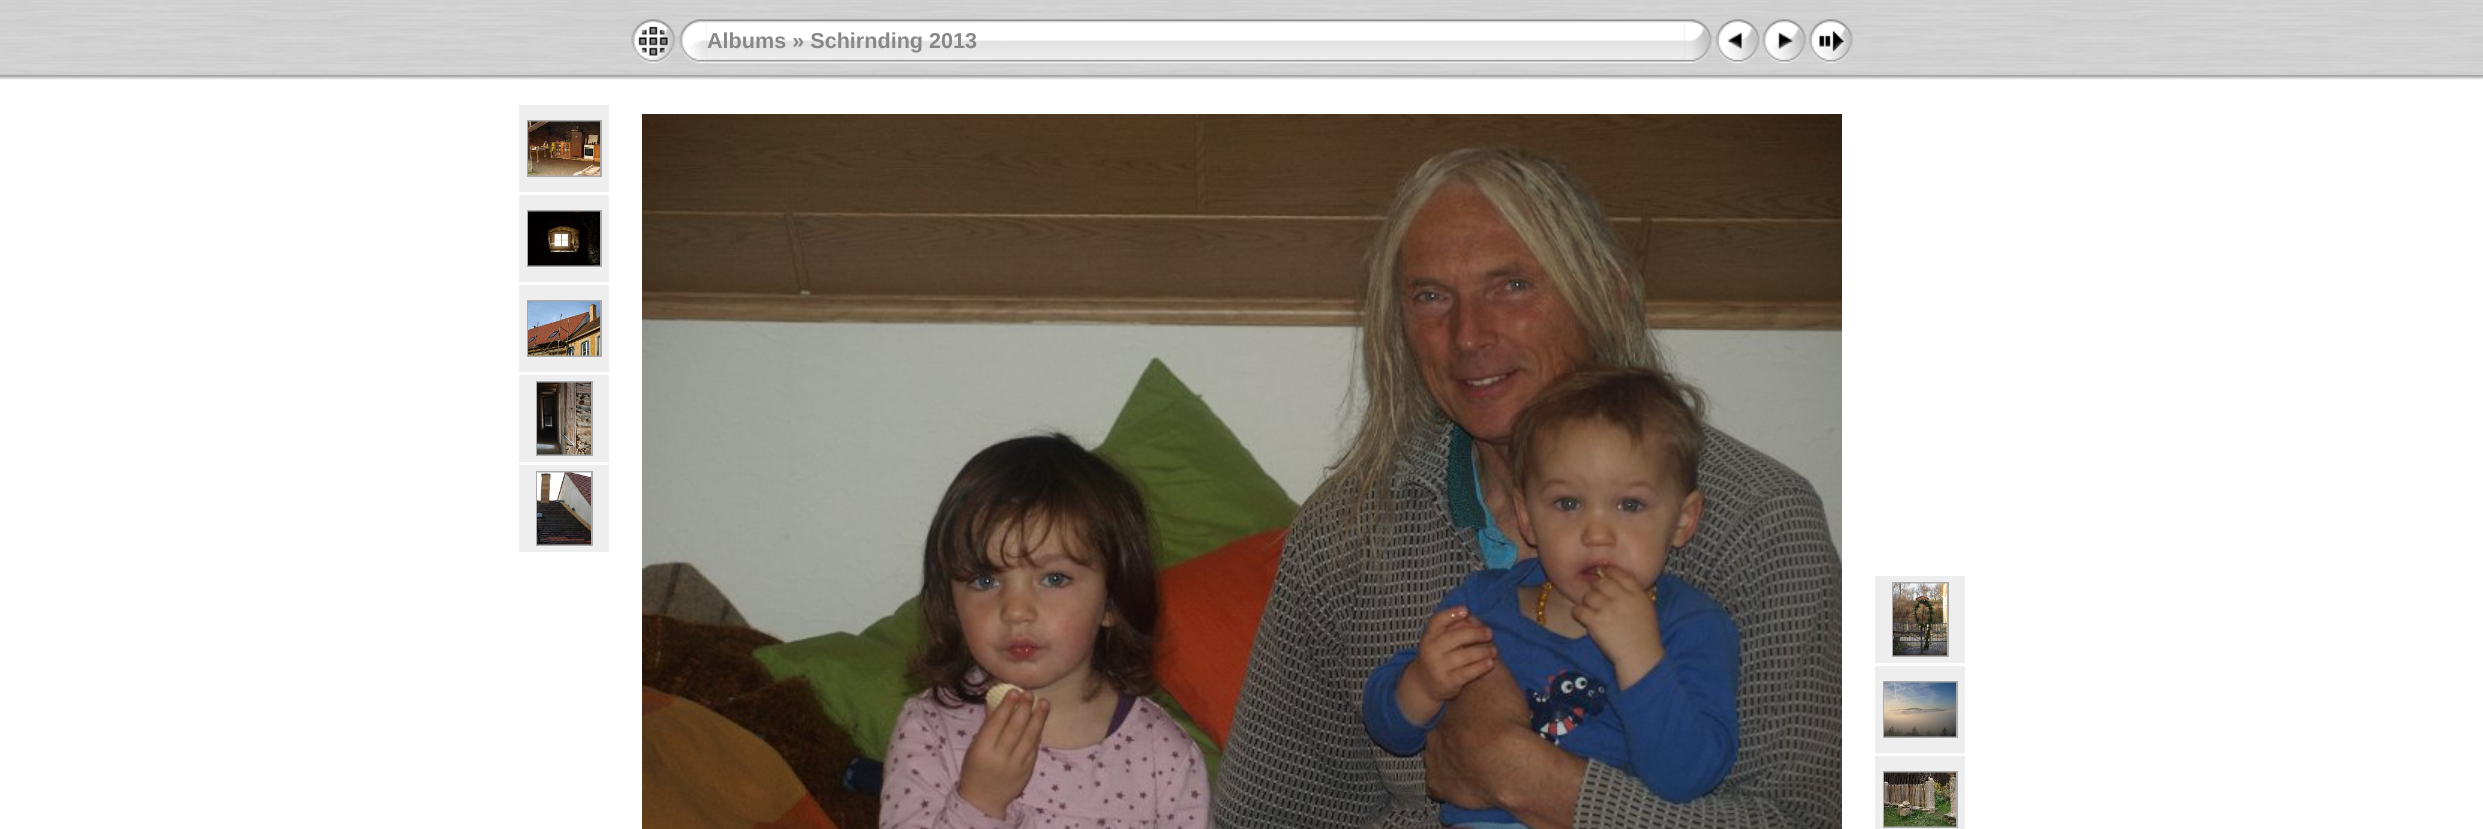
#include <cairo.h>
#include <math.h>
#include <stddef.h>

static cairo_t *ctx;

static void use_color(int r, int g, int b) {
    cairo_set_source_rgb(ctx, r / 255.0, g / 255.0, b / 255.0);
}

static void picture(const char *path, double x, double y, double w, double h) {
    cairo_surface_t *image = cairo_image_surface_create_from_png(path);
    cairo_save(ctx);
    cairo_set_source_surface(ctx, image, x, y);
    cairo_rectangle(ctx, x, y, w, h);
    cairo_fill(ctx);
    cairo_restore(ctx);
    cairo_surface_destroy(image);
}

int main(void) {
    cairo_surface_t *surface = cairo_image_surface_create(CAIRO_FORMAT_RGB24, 2483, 829);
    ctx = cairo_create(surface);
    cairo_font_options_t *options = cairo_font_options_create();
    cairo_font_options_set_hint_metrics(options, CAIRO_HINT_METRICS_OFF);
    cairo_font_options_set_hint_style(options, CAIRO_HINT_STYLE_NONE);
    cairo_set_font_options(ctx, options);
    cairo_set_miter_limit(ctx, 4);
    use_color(255, 255, 255);
    cairo_paint(ctx);
    picture("img1.png", 0, 0, 2483, 80);
    picture("img2.png", 631, 19, 45, 45);
    picture("img4.png", 706, 19, 979, 45);
    picture("img3.png", 679, 19, 28, 45);
    cairo_select_font_face(ctx, "Liberation Sans", CAIRO_FONT_SLANT_NORMAL, CAIRO_FONT_WEIGHT_BOLD);
    cairo_set_font_size(ctx, 21.6);
    use_color(136, 136, 136);
    cairo_move_to(ctx, 707, 48);
    cairo_show_text(ctx, "Albums » Schirnding 2013");
    picture("img5.png", 1684, 19, 28, 45);
    picture("img6.png", 1716, 19, 44, 45);
    picture("img7.png", 1762, 19, 45, 45);
    picture("img8.png", 1808, 19, 45, 45);
    use_color(238, 238, 238);
    cairo_rectangle(ctx, 519, 105, 90, 87);
    cairo_fill(ctx);
    cairo_rectangle(ctx, 528, 121, 73, 55);
    use_color(170, 170, 170);
    cairo_stroke(ctx);
    picture("img9.png", 528, 121, 72, 55);
    use_color(238, 238, 238);
    cairo_rectangle(ctx, 519, 195, 90, 87);
    cairo_fill(ctx);
    cairo_rectangle(ctx, 528, 211, 73, 55);
    use_color(170, 170, 170);
    cairo_stroke(ctx);
    picture("img10.png", 528, 211, 72, 55);
    use_color(238, 238, 238);
    cairo_rectangle(ctx, 519, 285, 90, 87);
    cairo_fill(ctx);
    cairo_rectangle(ctx, 528, 301, 73, 55);
    use_color(170, 170, 170);
    cairo_stroke(ctx);
    picture("img11.png", 528, 301, 72, 55);
    use_color(238, 238, 238);
    cairo_rectangle(ctx, 519, 375, 90, 87);
    cairo_fill(ctx);
    cairo_rectangle(ctx, 537, 382, 55, 73);
    use_color(170, 170, 170);
    cairo_stroke(ctx);
    picture("img12.png", 537, 382, 54, 73);
    use_color(238, 238, 238);
    cairo_rectangle(ctx, 519, 465, 90, 87);
    cairo_fill(ctx);
    cairo_rectangle(ctx, 537, 472, 55, 73);
    use_color(170, 170, 170);
    cairo_stroke(ctx);
    picture("img13.png", 537, 472, 54, 73);
    picture("img14.png", 642, 114, 1200, 715);
    use_color(238, 238, 238);
    cairo_rectangle(ctx, 1875, 576, 90, 87);
    cairo_fill(ctx);
    cairo_rectangle(ctx, 1893, 583, 55, 73);
    use_color(170, 170, 170);
    cairo_stroke(ctx);
    picture("img15.png", 1893, 583, 54, 73);
    use_color(238, 238, 238);
    cairo_rectangle(ctx, 1875, 666, 90, 87);
    cairo_fill(ctx);
    cairo_rectangle(ctx, 1884, 682, 73, 55);
    use_color(170, 170, 170);
    cairo_stroke(ctx);
    picture("img16.png", 1884, 682, 72, 55);
    use_color(238, 238, 238);
    cairo_rectangle(ctx, 1875, 756, 90, 73);
    cairo_fill(ctx);
    cairo_rectangle(ctx, 1884, 772, 73, 55);
    use_color(170, 170, 170);
    cairo_stroke(ctx);
    picture("img17.png", 1884, 772, 72, 55);
    cairo_surface_write_to_png(surface, "result.png");
    cairo_font_options_destroy(options);
    cairo_destroy(ctx);
    cairo_surface_destroy(surface);
    return 0;
}
